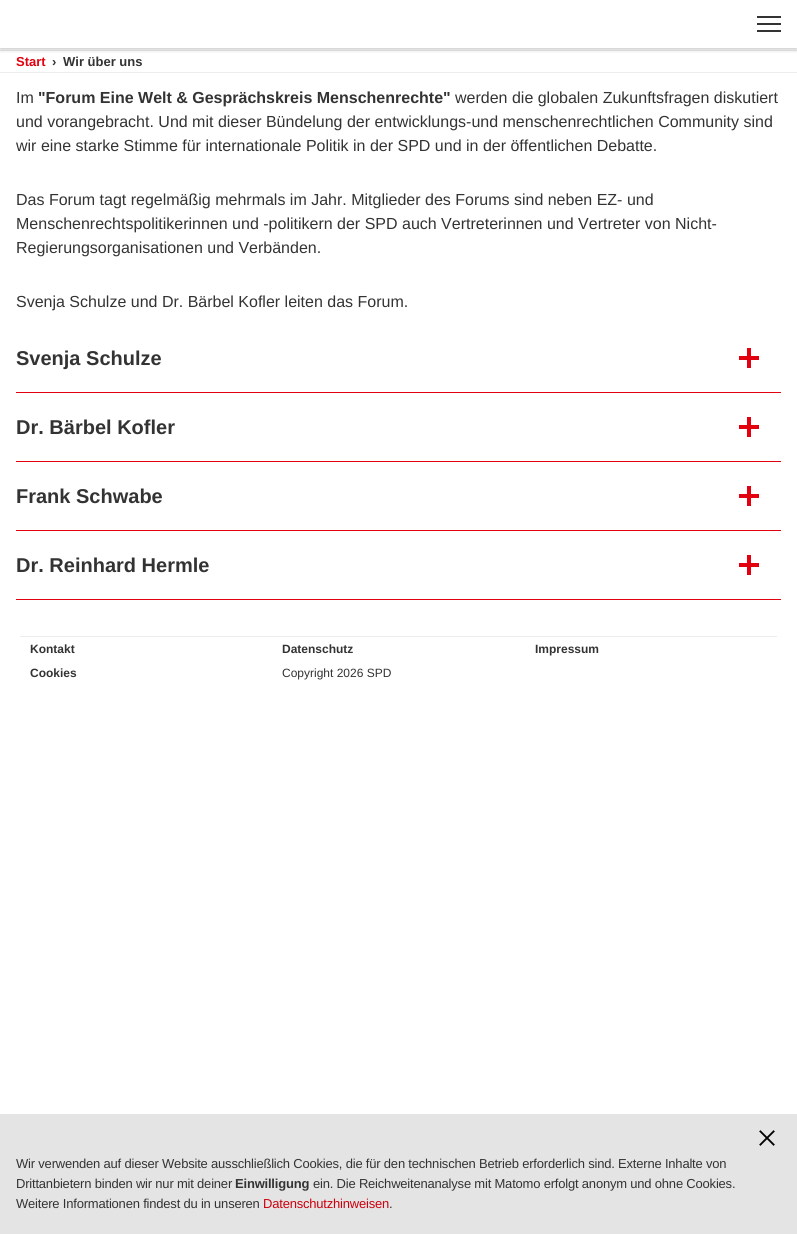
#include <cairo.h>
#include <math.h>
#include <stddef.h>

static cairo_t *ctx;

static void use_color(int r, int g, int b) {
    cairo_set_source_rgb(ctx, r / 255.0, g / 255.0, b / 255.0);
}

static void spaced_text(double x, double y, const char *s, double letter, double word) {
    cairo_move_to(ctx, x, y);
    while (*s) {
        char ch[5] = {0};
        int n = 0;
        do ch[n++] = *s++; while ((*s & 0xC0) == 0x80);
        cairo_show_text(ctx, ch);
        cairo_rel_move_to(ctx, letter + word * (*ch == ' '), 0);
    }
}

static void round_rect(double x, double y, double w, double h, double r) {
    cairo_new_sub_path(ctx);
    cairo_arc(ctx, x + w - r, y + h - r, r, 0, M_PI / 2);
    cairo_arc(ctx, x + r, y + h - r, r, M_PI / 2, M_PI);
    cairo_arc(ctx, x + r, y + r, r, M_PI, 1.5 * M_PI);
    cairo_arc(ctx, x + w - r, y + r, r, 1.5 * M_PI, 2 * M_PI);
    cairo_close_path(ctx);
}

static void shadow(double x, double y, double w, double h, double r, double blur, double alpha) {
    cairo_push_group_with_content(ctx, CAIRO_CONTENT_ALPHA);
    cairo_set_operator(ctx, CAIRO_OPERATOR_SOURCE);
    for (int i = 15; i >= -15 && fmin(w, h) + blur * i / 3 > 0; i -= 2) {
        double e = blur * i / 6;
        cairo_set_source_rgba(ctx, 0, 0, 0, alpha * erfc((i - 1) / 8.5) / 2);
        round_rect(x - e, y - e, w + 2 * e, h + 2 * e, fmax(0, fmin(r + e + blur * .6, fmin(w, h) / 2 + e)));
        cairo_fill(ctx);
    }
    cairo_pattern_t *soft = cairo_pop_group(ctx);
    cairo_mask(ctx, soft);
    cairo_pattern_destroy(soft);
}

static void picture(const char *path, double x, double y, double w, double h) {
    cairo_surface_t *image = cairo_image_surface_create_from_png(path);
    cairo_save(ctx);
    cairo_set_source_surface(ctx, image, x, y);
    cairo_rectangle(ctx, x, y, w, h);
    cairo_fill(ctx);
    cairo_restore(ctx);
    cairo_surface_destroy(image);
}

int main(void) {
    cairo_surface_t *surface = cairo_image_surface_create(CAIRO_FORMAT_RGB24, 797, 1234);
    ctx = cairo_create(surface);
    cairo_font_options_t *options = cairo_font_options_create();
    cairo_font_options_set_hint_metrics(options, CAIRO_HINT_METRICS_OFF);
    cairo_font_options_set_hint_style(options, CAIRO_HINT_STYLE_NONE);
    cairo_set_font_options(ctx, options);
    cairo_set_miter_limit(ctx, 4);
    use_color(255, 255, 255);
    cairo_paint(ctx);
    use_color(237, 237, 237);
    cairo_rectangle(ctx, 0, 50, 797, 1);
    cairo_fill(ctx);
    cairo_save(ctx);
    cairo_rectangle(ctx, 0, 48, 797, 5);
    cairo_clip(ctx);
    use_color(0, 0, 0);
    shadow(0, 2, 797, 48, 0, 2, 0.2);
    cairo_restore(ctx);
    use_color(51, 51, 51);
    cairo_rectangle(ctx, 757, 16, 24, 2);
    cairo_fill(ctx);
    cairo_rectangle(ctx, 757, 23, 24, 2);
    cairo_fill(ctx);
    cairo_rectangle(ctx, 757, 30, 24, 2);
    cairo_fill(ctx);
    use_color(237, 237, 237);
    cairo_rectangle(ctx, 0, 72, 797, 1);
    cairo_fill(ctx);
    cairo_select_font_face(ctx, "Liberation Sans", CAIRO_FONT_SLANT_NORMAL, CAIRO_FONT_WEIGHT_BOLD);
    cairo_set_font_size(ctx, 13);
    use_color(227, 0, 15);
    cairo_move_to(ctx, 16, 66);
    cairo_show_text(ctx, "Start");
    use_color(51, 51, 51);
    cairo_move_to(ctx, 52, 66);
    cairo_show_text(ctx, "›");
    cairo_move_to(ctx, 63, 66);
    cairo_show_text(ctx, "Wir über uns");
    cairo_select_font_face(ctx, "Liberation Sans", CAIRO_FONT_SLANT_NORMAL, CAIRO_FONT_WEIGHT_NORMAL);
    cairo_set_font_size(ctx, 16);
    cairo_move_to(ctx, 16, 103);
    cairo_show_text(ctx, "Im");
    cairo_select_font_face(ctx, "Liberation Sans", CAIRO_FONT_SLANT_NORMAL, CAIRO_FONT_WEIGHT_BOLD);
    cairo_move_to(ctx, 38, 103);
    cairo_show_text(ctx, "\"Forum Eine Welt & Gesprächskreis Menschenrechte\"");
    cairo_select_font_face(ctx, "Liberation Sans", CAIRO_FONT_SLANT_NORMAL, CAIRO_FONT_WEIGHT_NORMAL);
    cairo_move_to(ctx, 455, 103);
    cairo_show_text(ctx, "werden die globalen Zukunftsfragen diskutiert");
    cairo_move_to(ctx, 16, 127);
    cairo_show_text(ctx, "und vorangebracht. Und mit dieser Bündelung der entwicklungs-und menschenrechtlichen Community sind");
    cairo_move_to(ctx, 16, 151);
    cairo_show_text(ctx, "wir eine starke Stimme für internationale Politik in der SPD und in der öffentlichen Debatte.");
    cairo_move_to(ctx, 16, 205);
    cairo_show_text(ctx, "Das Forum tagt regelmäßig mehrmals im Jahr. Mitglieder des Forums sind neben EZ- und");
    cairo_move_to(ctx, 16, 229);
    cairo_show_text(ctx, "Menschenrechtspolitikerinnen und -politikern der SPD auch Vertreterinnen und Vertreter von Nicht-");
    cairo_move_to(ctx, 16, 253);
    cairo_show_text(ctx, "Regierungsorganisationen und Verbänden.");
    cairo_move_to(ctx, 16, 307);
    cairo_show_text(ctx, "Svenja Schulze und Dr. Bärbel Kofler leiten das Forum.");
    cairo_select_font_face(ctx, "Liberation Sans", CAIRO_FONT_SLANT_NORMAL, CAIRO_FONT_WEIGHT_BOLD);
    cairo_set_font_size(ctx, 20);
    cairo_move_to(ctx, 16, 365);
    cairo_show_text(ctx, "Svenja Schulze");
    use_color(227, 0, 15);
    cairo_rectangle(ctx, 739, 356, 20, 4);
    cairo_fill(ctx);
    cairo_rectangle(ctx, 747, 348, 4, 20);
    cairo_fill(ctx);
    cairo_rectangle(ctx, 16, 392, 765, 1);
    cairo_fill(ctx);
    use_color(51, 51, 51);
    cairo_move_to(ctx, 16, 434);
    cairo_show_text(ctx, "Dr. Bärbel Kofler");
    use_color(227, 0, 15);
    cairo_rectangle(ctx, 739, 425, 20, 4);
    cairo_fill(ctx);
    cairo_rectangle(ctx, 747, 417, 4, 20);
    cairo_fill(ctx);
    cairo_rectangle(ctx, 16, 461, 765, 1);
    cairo_fill(ctx);
    use_color(51, 51, 51);
    cairo_move_to(ctx, 16, 503);
    cairo_show_text(ctx, "Frank Schwabe");
    use_color(227, 0, 15);
    cairo_rectangle(ctx, 739, 494, 20, 4);
    cairo_fill(ctx);
    cairo_rectangle(ctx, 747, 486, 4, 20);
    cairo_fill(ctx);
    cairo_rectangle(ctx, 16, 530, 765, 1);
    cairo_fill(ctx);
    cairo_rectangle(ctx, 16, 599, 765, 1);
    cairo_fill(ctx);
    use_color(51, 51, 51);
    cairo_move_to(ctx, 16, 572);
    cairo_show_text(ctx, "Dr. Reinhard Hermle");
    use_color(227, 0, 15);
    cairo_rectangle(ctx, 739, 563, 20, 4);
    cairo_fill(ctx);
    cairo_rectangle(ctx, 747, 555, 4, 20);
    cairo_fill(ctx);
    use_color(237, 237, 237);
    cairo_rectangle(ctx, 20, 636, 757, 1);
    cairo_fill(ctx);
    cairo_set_font_size(ctx, 12);
    use_color(51, 51, 51);
    cairo_move_to(ctx, 30, 653);
    cairo_show_text(ctx, "Kontakt");
    cairo_move_to(ctx, 282, 653);
    cairo_show_text(ctx, "Datenschutz");
    cairo_move_to(ctx, 535, 653);
    cairo_show_text(ctx, "Impressum");
    cairo_move_to(ctx, 30, 677);
    cairo_show_text(ctx, "Cookies");
    cairo_select_font_face(ctx, "Liberation Sans", CAIRO_FONT_SLANT_NORMAL, CAIRO_FONT_WEIGHT_NORMAL);
    cairo_move_to(ctx, 282, 677);
    cairo_show_text(ctx, "Copyright 2026 SPD");
    use_color(228, 228, 228);
    cairo_rectangle(ctx, 0, 1114, 797, 120);
    cairo_fill(ctx);
    picture("img1.png", 759, 1130, 16, 16);
    cairo_set_font_size(ctx, 13);
    use_color(51, 51, 51);
    spaced_text(16, 1168, "Wir verwenden auf dieser Website ausschließlich Cookies, die für den technischen Betrieb erforderlich sind. Externe Inhalte von", -0.2, 0);
    spaced_text(16, 1188, "Drittanbietern binden wir nur mit deiner", -0.2, 0);
    cairo_select_font_face(ctx, "Liberation Sans", CAIRO_FONT_SLANT_NORMAL, CAIRO_FONT_WEIGHT_BOLD);
    spaced_text(235, 1188, "Einwilligung", -0.2, 0);
    cairo_select_font_face(ctx, "Liberation Sans", CAIRO_FONT_SLANT_NORMAL, CAIRO_FONT_WEIGHT_NORMAL);
    spaced_text(313, 1188, "ein. Die Reichweitenanalyse mit Matomo erfolgt anonym und ohne Cookies.", -0.2, 0);
    spaced_text(16, 1208, "Weitere Informationen findest du in unseren", -0.2, 0);
    use_color(204, 0, 13);
    spaced_text(263, 1208, "Datenschutzhinweisen", -0.2, 0);
    use_color(51, 51, 51);
    spaced_text(389, 1208, ".", -0.2, 0);
    cairo_surface_write_to_png(surface, "result.png");
    cairo_font_options_destroy(options);
    cairo_destroy(ctx);
    cairo_surface_destroy(surface);
    return 0;
}
